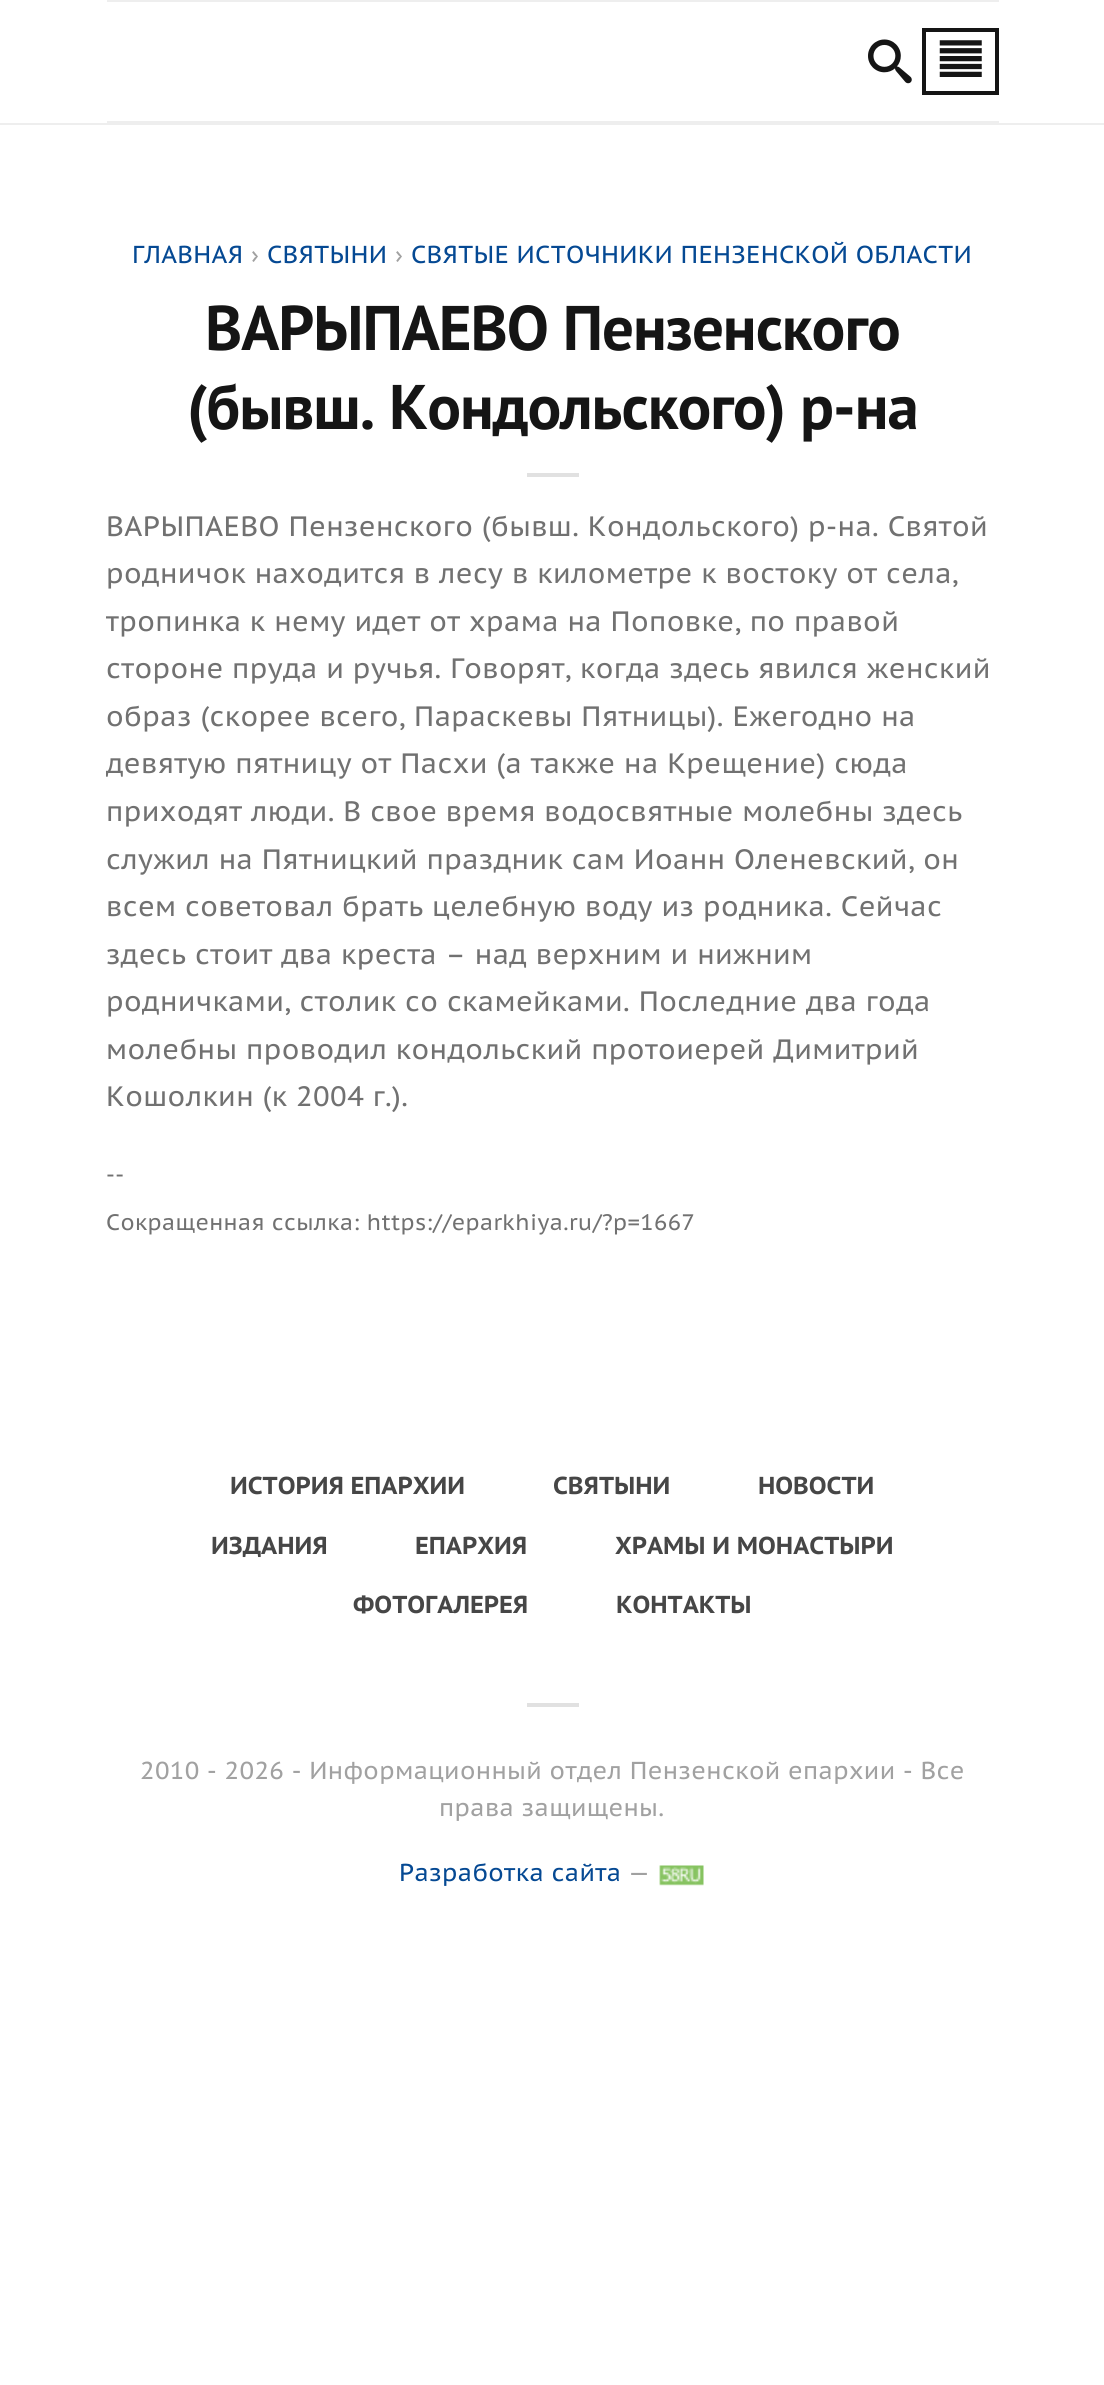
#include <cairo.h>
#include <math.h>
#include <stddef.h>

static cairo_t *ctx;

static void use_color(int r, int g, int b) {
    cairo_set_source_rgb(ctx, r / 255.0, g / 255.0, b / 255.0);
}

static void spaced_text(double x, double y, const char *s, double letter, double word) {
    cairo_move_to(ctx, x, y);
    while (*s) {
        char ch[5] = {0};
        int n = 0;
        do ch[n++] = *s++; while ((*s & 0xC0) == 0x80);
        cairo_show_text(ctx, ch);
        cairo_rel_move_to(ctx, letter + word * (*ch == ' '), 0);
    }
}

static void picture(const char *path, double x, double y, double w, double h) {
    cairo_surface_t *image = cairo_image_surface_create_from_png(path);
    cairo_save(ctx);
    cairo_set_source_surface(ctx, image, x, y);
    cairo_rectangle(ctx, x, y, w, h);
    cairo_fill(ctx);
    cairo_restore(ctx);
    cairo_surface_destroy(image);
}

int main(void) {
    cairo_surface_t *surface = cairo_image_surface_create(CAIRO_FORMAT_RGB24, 1104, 2385);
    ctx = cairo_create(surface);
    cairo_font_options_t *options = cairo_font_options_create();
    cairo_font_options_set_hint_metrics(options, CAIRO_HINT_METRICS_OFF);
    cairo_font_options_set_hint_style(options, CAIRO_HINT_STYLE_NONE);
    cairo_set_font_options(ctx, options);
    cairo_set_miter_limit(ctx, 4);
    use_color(255, 255, 255);
    cairo_paint(ctx);
    use_color(238, 238, 238);
    cairo_rectangle(ctx, 0, 123, 1104, 2);
    cairo_fill(ctx);
    cairo_rectangle(ctx, 107, 0, 892, 2);
    cairo_fill(ctx);
    cairo_rectangle(ctx, 107, 121, 892, 2);
    cairo_fill(ctx);
    picture("img1.png", 868, 39, 44, 45);
    cairo_rectangle(ctx, 924, 30, 73, 63);
    use_color(21, 21, 21);
    cairo_set_line_width(ctx, 4);
    cairo_stroke(ctx);
    picture("img2.png", 939, 40, 43, 37);
    cairo_select_font_face(ctx, "PT Sans Caption", CAIRO_FONT_SLANT_NORMAL, CAIRO_FONT_WEIGHT_NORMAL);
    cairo_set_font_size(ctx, 24.5);
    use_color(5, 73, 147);
    spaced_text(132, 263, "ГЛАВНАЯ", 0.3, 0);
    use_color(161, 161, 161);
    spaced_text(251, 263, "›", 0.3, 0);
    use_color(5, 73, 147);
    spaced_text(267, 263, "СВЯТЫНИ", 0.3, 0);
    use_color(161, 161, 161);
    spaced_text(395, 263, "›", 0.3, 0);
    use_color(5, 73, 147);
    spaced_text(411, 263, "СВЯТЫЕ ИСТОЧНИКИ ПЕНЗЕНСКОЙ ОБЛАСТИ", 0.3, 0);
    cairo_select_font_face(ctx, "PT Sans", CAIRO_FONT_SLANT_NORMAL, CAIRO_FONT_WEIGHT_BOLD);
    cairo_set_font_size(ctx, 63);
    use_color(21, 21, 21);
    spaced_text(205, 350, "ВАРЫПАЕВО Пензенского", -1.05, 0);
    spaced_text(187, 429, "(бывш. Кондольского) р-на", -1.05, 0);
    use_color(225, 225, 225);
    cairo_rectangle(ctx, 527, 473, 52, 4);
    cairo_fill(ctx);
    cairo_select_font_face(ctx, "PT Sans Caption", CAIRO_FONT_SLANT_NORMAL, CAIRO_FONT_WEIGHT_NORMAL);
    cairo_set_font_size(ctx, 28);
    use_color(113, 113, 113);
    spaced_text(106, 536, "ВАРЫПАЕВО Пензенского (бывш. Кондольского) р-на. Святой", 0.4, 0);
    spaced_text(106, 583, "родничок находится в лесу в километре к востоку от села,", 0.4, 0);
    spaced_text(106, 631, "тропинка к нему идет от храма на Поповке, по правой", 0.4, 0);
    spaced_text(106, 678, "стороне пруда и ручья. Говорят, когда здесь явился женский", 0.4, 0);
    spaced_text(106, 726, "образ (скорее всего, Параскевы Пятницы). Ежегодно на", 0.4, 0);
    spaced_text(106, 773, "девятую пятницу от Пасхи (а также на Крещение) сюда", 0.4, 0);
    spaced_text(106, 821, "приходят люди. В свое время водосвятные молебны здесь", 0.4, 0);
    spaced_text(106, 869, "служил на Пятницкий праздник сам Иоанн Оленевский, он", 0.4, 0);
    spaced_text(106, 916, "всем советовал брать целебную воду из родника. Сейчас", 0.4, 0);
    spaced_text(106, 964, "здесь стоит два креста – над верхним и нижним", 0.4, 0);
    spaced_text(106, 1011, "родничками, столик со скамейками. Последние два года", 0.4, 0);
    spaced_text(106, 1059, "молебны проводил кондольский протоиерей Димитрий", 0.4, 0);
    spaced_text(106, 1106, "Кошолкин (к 2004 г.).", 0.4, 0);
    cairo_set_font_size(ctx, 22.4);
    spaced_text(106, 1182, "--", 0.4, 0);
    spaced_text(106, 1230, "Сокращенная ссылка: https://eparkhiya.ru/?p=1667", 0.4, 0);
    cairo_select_font_face(ctx, "PT Sans Caption", CAIRO_FONT_SLANT_NORMAL, CAIRO_FONT_WEIGHT_BOLD);
    cairo_set_font_size(ctx, 24.5);
    use_color(70, 70, 70);
    cairo_move_to(ctx, 230, 1494);
    cairo_show_text(ctx, "ИСТОРИЯ ЕПАРХИИ");
    cairo_move_to(ctx, 553, 1494);
    cairo_show_text(ctx, "СВЯТЫНИ");
    cairo_move_to(ctx, 758, 1494);
    cairo_show_text(ctx, "НОВОСТИ");
    cairo_move_to(ctx, 211, 1554);
    cairo_show_text(ctx, "ИЗДАНИЯ");
    cairo_move_to(ctx, 415, 1554);
    cairo_show_text(ctx, "ЕПАРХИЯ");
    cairo_move_to(ctx, 615, 1554);
    cairo_show_text(ctx, "ХРАМЫ И МОНАСТЫРИ");
    cairo_move_to(ctx, 353, 1613);
    cairo_show_text(ctx, "ФОТОГАЛЕРЕЯ");
    cairo_move_to(ctx, 616, 1613);
    cairo_show_text(ctx, "КОНТАКТЫ");
    use_color(225, 225, 225);
    cairo_rectangle(ctx, 527, 1703, 52, 4);
    cairo_fill(ctx);
    cairo_select_font_face(ctx, "PT Sans Caption", CAIRO_FONT_SLANT_NORMAL, CAIRO_FONT_WEIGHT_NORMAL);
    use_color(161, 161, 161);
    spaced_text(140, 1779, "2010 - 2026 - Информационный отдел Пензенской епархии - Все", 0.35, 0);
    spaced_text(439, 1816, "права защищены.", 0.35, 0);
    use_color(5, 73, 147);
    spaced_text(399, 1881, "Разработка сайта", 0.35, 0);
    use_color(161, 161, 161);
    spaced_text(628, 1881, "—", 0.35, 0);
    picture("img3.png", 659, 1865, 45, 21);
    cairo_surface_write_to_png(surface, "result.png");
    cairo_font_options_destroy(options);
    cairo_destroy(ctx);
    cairo_surface_destroy(surface);
    return 0;
}
